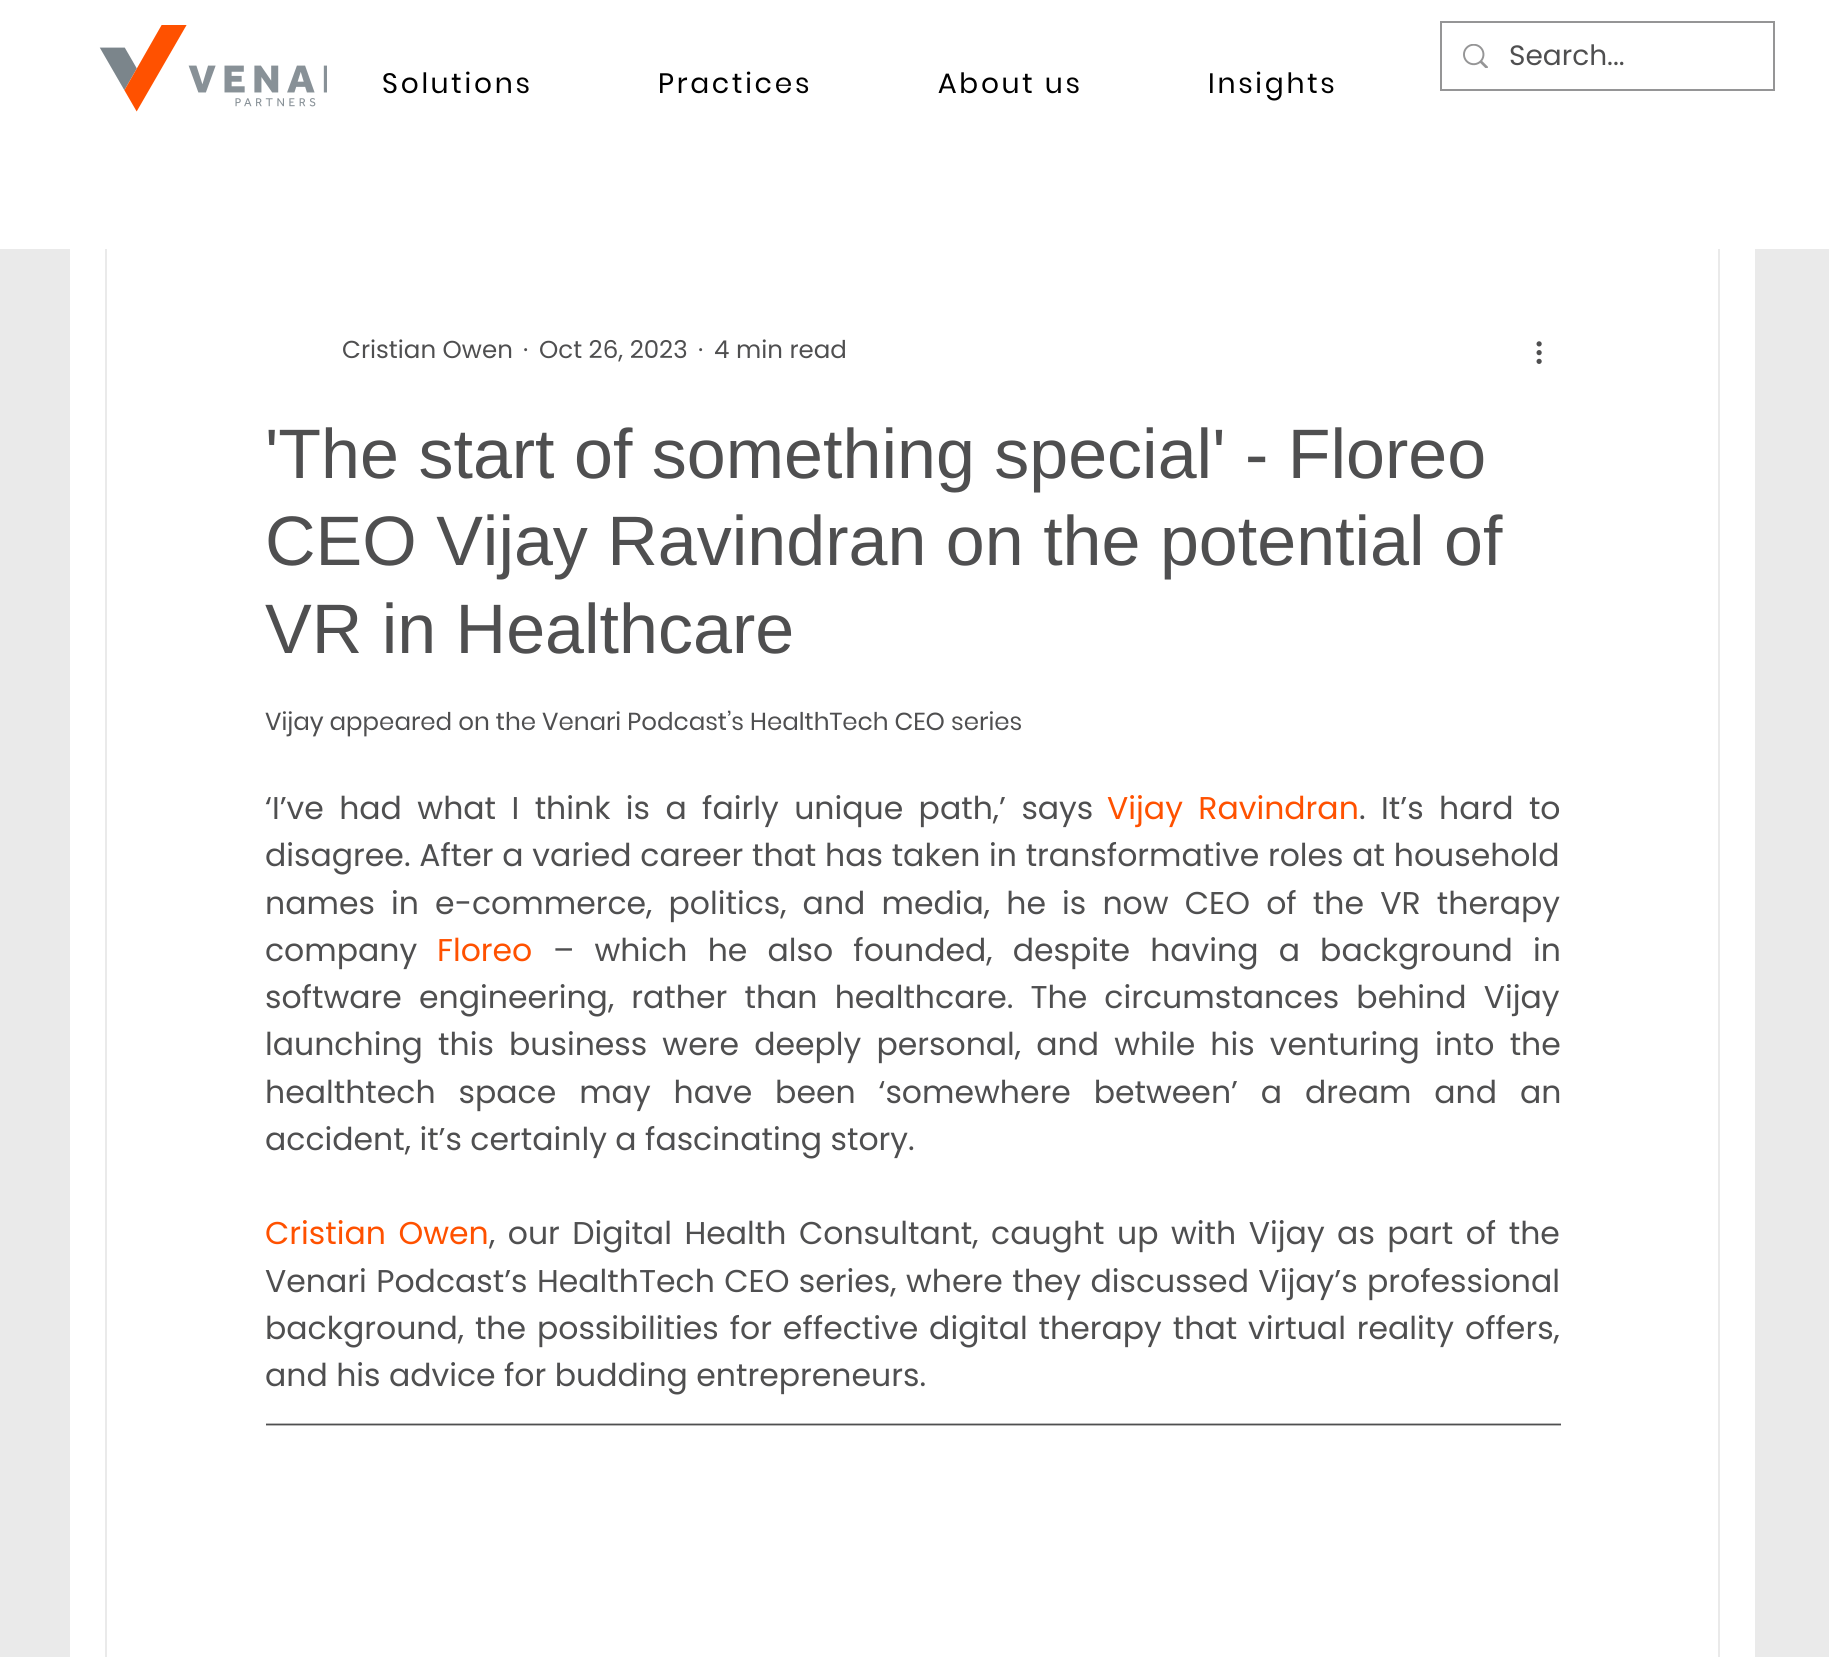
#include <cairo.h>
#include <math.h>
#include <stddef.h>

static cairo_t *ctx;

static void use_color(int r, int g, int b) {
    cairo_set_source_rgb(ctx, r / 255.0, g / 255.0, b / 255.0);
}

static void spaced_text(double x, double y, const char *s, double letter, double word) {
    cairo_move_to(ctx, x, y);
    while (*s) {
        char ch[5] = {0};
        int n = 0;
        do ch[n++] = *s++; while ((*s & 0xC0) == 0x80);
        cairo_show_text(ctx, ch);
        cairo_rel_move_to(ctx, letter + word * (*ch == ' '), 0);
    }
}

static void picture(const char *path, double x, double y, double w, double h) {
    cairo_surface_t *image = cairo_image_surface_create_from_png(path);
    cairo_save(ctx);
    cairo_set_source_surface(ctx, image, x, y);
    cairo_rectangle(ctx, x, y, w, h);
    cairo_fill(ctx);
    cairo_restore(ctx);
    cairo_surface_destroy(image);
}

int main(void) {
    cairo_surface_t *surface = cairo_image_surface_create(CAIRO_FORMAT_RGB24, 1829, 1657);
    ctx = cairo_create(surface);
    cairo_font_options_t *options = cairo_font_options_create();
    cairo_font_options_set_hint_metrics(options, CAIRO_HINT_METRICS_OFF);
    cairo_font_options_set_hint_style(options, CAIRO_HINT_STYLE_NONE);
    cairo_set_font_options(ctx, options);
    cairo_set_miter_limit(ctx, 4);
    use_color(234, 234, 234);
    cairo_paint(ctx);
    use_color(255, 255, 255);
    cairo_rectangle(ctx, 70, 249, 1685, 1408);
    cairo_fill(ctx);
    cairo_rectangle(ctx, 106, 216, 1613, 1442);
    use_color(234, 234, 234);
    cairo_stroke(ctx);
    use_color(255, 255, 255);
    cairo_rectangle(ctx, 0, 0, 1829, 249);
    cairo_fill(ctx);
    picture("img1.png", 99, 25, 228, 87);
    cairo_rectangle(ctx, 1441, 22, 333, 68);
    use_color(149, 149, 150);
    cairo_stroke(ctx);
    picture("img2.png", 1463, 44, 25, 24);
    cairo_select_font_face(ctx, "Poppins", CAIRO_FONT_SLANT_NORMAL, CAIRO_FONT_WEIGHT_NORMAL);
    cairo_set_font_size(ctx, 28);
    use_color(79, 79, 80);
    cairo_move_to(ctx, 1509, 65);
    cairo_show_text(ctx, "Search...");
    cairo_select_font_face(ctx, "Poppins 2", CAIRO_FONT_SLANT_NORMAL, CAIRO_FONT_WEIGHT_NORMAL);
    use_color(0, 0, 0);
    spaced_text(382, 93, "Solutions", 2.75, 0);
    spaced_text(658, 93, "Practices", 2.75, 0);
    spaced_text(938, 93, "About us", 2.75, 0);
    spaced_text(1208, 93, "Insights", 2.75, 0);
    cairo_select_font_face(ctx, "Poppins", CAIRO_FONT_SLANT_NORMAL, CAIRO_FONT_WEIGHT_NORMAL);
    cairo_set_font_size(ctx, 24.5);
    use_color(79, 79, 80);
    cairo_move_to(ctx, 342, 358);
    cairo_show_text(ctx, "Cristian Owen");
    cairo_move_to(ctx, 523, 358);
    cairo_show_text(ctx, "·");
    cairo_move_to(ctx, 539, 358);
    cairo_show_text(ctx, "Oct 26, 2023");
    cairo_move_to(ctx, 698, 358);
    cairo_show_text(ctx, "·");
    cairo_move_to(ctx, 714, 358);
    cairo_show_text(ctx, "4 min read");
    picture("img3.png", 1536, 341, 6, 23);
    cairo_select_font_face(ctx, "Liberation Sans", CAIRO_FONT_SLANT_NORMAL, CAIRO_FONT_WEIGHT_NORMAL);
    cairo_set_font_size(ctx, 70);
    cairo_move_to(ctx, 265, 478);
    cairo_show_text(ctx, "'The start of something special' - Floreo");
    cairo_move_to(ctx, 265, 565);
    cairo_show_text(ctx, "CEO Vijay Ravindran on the potential of");
    cairo_move_to(ctx, 265, 653);
    cairo_show_text(ctx, "VR in Healthcare");
    cairo_select_font_face(ctx, "Poppins 2", CAIRO_FONT_SLANT_NORMAL, CAIRO_FONT_WEIGHT_NORMAL);
    cairo_set_font_size(ctx, 24.5);
    cairo_move_to(ctx, 265, 730);
    cairo_show_text(ctx, "Vijay appeared on the Venari Podcast’s HealthTech CEO series");
    cairo_select_font_face(ctx, "Poppins", CAIRO_FONT_SLANT_NORMAL, CAIRO_FONT_WEIGHT_NORMAL);
    cairo_set_font_size(ctx, 31.5);
    spaced_text(265, 819, "‘I’ve had what I think is a fairly unique path,’ says", 0, 7);
    use_color(255, 81, 0);
    spaced_text(1107, 819, "Vijay Ravindran", 0, 7);
    use_color(79, 79, 80);
    spaced_text(1359, 819, ". It’s hard to", 0, 7);
    spaced_text(265, 866, "disagree. After a varied career that has taken in transformative roles at household", 0, 0.3);
    spaced_text(265, 914, "names in e-commerce, politics, and media, he is now CEO of the VR therapy", 0, 7.75);
    cairo_move_to(ctx, 265, 961);
    cairo_show_text(ctx, "company");
    use_color(255, 81, 0);
    cairo_move_to(ctx, 437, 961);
    cairo_show_text(ctx, "Floreo");
    use_color(79, 79, 80);
    spaced_text(553, 961, "– which he also founded, despite having a background in", 0, 11.75);
    spaced_text(265, 1008, "software engineering, rather than healthcare. The circumstances behind Vijay", 0, 8.75);
    spaced_text(265, 1055, "launching this business were deeply personal, and while his venturing into the", 0, 6.75);
    spaced_text(265, 1103, "healthtech space may have been ‘somewhere between’ a dream and an", 0, 14.5);
    cairo_move_to(ctx, 265, 1150);
    cairo_show_text(ctx, "accident, it’s certainly a fascinating story.");
    use_color(255, 81, 0);
    spaced_text(265, 1244, "Cristian Owen", 0, 4.1);
    use_color(79, 79, 80);
    spaced_text(489, 1244, ", our Digital Health Consultant, caught up with Vijay as part of the", 0, 4.1);
    spaced_text(265, 1292, "Venari Podcast’s HealthTech CEO series, where they discussed Vijay’s professional", 0, 1);
    spaced_text(265, 1339, "background, the possibilities for effective digital therapy that virtual reality offers,", 0, 2.5);
    cairo_move_to(ctx, 265, 1386);
    cairo_show_text(ctx, "and his advice for budding entrepreneurs.");
    cairo_new_path(ctx);
    cairo_move_to(ctx, 266, 1424.5);
    cairo_line_to(ctx, 1561, 1424.5);
    cairo_set_line_width(ctx, 1.8);
    cairo_stroke(ctx);
    cairo_surface_write_to_png(surface, "result.png");
    cairo_font_options_destroy(options);
    cairo_destroy(ctx);
    cairo_surface_destroy(surface);
    return 0;
}
